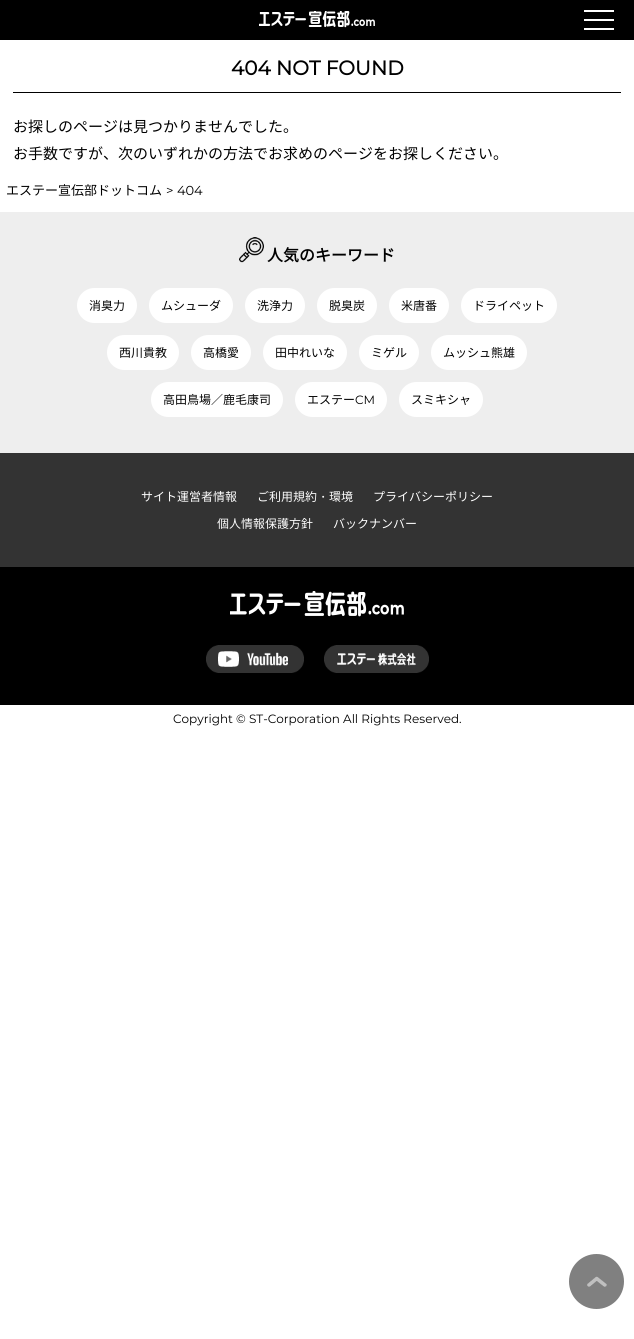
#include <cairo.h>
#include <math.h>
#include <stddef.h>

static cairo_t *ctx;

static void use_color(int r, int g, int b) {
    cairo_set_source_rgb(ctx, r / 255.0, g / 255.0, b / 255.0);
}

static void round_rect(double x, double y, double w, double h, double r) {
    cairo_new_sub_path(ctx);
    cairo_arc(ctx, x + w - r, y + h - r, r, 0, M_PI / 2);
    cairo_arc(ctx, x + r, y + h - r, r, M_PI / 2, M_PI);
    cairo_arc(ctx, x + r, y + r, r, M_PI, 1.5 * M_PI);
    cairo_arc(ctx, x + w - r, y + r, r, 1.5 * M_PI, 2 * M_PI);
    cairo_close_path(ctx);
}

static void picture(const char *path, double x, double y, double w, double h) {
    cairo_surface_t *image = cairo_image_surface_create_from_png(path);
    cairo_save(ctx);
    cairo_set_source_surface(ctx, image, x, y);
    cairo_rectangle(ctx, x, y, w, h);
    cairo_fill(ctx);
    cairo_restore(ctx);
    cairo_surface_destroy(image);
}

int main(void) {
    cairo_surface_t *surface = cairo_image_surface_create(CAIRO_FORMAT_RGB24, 634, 1339);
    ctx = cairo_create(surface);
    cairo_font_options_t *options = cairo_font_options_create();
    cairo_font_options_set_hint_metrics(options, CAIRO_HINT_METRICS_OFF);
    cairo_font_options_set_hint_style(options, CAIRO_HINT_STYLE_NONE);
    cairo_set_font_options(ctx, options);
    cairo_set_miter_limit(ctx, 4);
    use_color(255, 255, 255);
    cairo_paint(ctx);
    use_color(0, 0, 0);
    cairo_rectangle(ctx, 0, 0, 634, 40);
    cairo_fill(ctx);
    picture("img1.png", 259, 11, 116, 17);
    use_color(255, 255, 255);
    cairo_rectangle(ctx, 584, 10, 30, 2);
    cairo_fill(ctx);
    cairo_rectangle(ctx, 584, 19, 30, 2);
    cairo_fill(ctx);
    cairo_rectangle(ctx, 584, 28, 30, 2);
    cairo_fill(ctx);
    use_color(0, 0, 0);
    cairo_rectangle(ctx, 13, 92, 608, 1);
    cairo_fill(ctx);
    cairo_select_font_face(ctx, "Montserrat", CAIRO_FONT_SLANT_NORMAL, CAIRO_FONT_WEIGHT_BOLD);
    cairo_set_font_size(ctx, 20);
    cairo_move_to(ctx, 231, 75);
    cairo_show_text(ctx, "404 NOT FOUND");
    cairo_select_font_face(ctx, "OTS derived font", CAIRO_FONT_SLANT_NORMAL, CAIRO_FONT_WEIGHT_NORMAL);
    cairo_set_font_size(ctx, 15);
    cairo_move_to(ctx, 13, 132);
    cairo_show_text(ctx, "お探しのページは見つかりませんでした。");
    cairo_move_to(ctx, 13, 159);
    cairo_show_text(ctx, "お手数ですが、次のいずれかの方法でお求めのページをお探しください。");
    cairo_set_font_size(ctx, 13);
    cairo_move_to(ctx, 6, 195);
    cairo_show_text(ctx, "エステー宣伝部ドットコム");
    cairo_select_font_face(ctx, "Montserrat Thin", CAIRO_FONT_SLANT_NORMAL, CAIRO_FONT_WEIGHT_NORMAL);
    cairo_move_to(ctx, 166, 195);
    cairo_show_text(ctx, "> 404");
    use_color(238, 238, 238);
    cairo_rectangle(ctx, 0, 212, 634, 241);
    cairo_fill(ctx);
    picture("img2.png", 239, 237, 25, 26);
    cairo_select_font_face(ctx, "OTS derived font", CAIRO_FONT_SLANT_NORMAL, CAIRO_FONT_WEIGHT_BOLD);
    cairo_set_font_size(ctx, 16);
    use_color(0, 0, 0);
    cairo_move_to(ctx, 267, 261);
    cairo_show_text(ctx, "人気のキーワード");
    use_color(255, 255, 255);
    round_rect(77, 288, 60, 35, 17.5);
    cairo_fill(ctx);
    cairo_select_font_face(ctx, "OTS derived font", CAIRO_FONT_SLANT_NORMAL, CAIRO_FONT_WEIGHT_NORMAL);
    cairo_set_font_size(ctx, 12);
    use_color(0, 0, 0);
    cairo_move_to(ctx, 89, 310);
    cairo_show_text(ctx, "消臭力");
    use_color(255, 255, 255);
    round_rect(149, 288, 84, 35, 17.5);
    cairo_fill(ctx);
    use_color(0, 0, 0);
    cairo_move_to(ctx, 161, 310);
    cairo_show_text(ctx, "ムシューダ");
    use_color(255, 255, 255);
    round_rect(245, 288, 60, 35, 17.5);
    cairo_fill(ctx);
    use_color(0, 0, 0);
    cairo_move_to(ctx, 257, 310);
    cairo_show_text(ctx, "洗浄力");
    use_color(255, 255, 255);
    round_rect(317, 288, 60, 35, 17.5);
    cairo_fill(ctx);
    use_color(0, 0, 0);
    cairo_move_to(ctx, 329, 310);
    cairo_show_text(ctx, "脱臭炭");
    use_color(255, 255, 255);
    round_rect(389, 288, 60, 35, 17.5);
    cairo_fill(ctx);
    use_color(0, 0, 0);
    cairo_move_to(ctx, 401, 310);
    cairo_show_text(ctx, "米唐番");
    use_color(255, 255, 255);
    round_rect(461, 288, 96, 35, 17.5);
    cairo_fill(ctx);
    use_color(0, 0, 0);
    cairo_move_to(ctx, 473, 310);
    cairo_show_text(ctx, "ドライペット");
    use_color(255, 255, 255);
    round_rect(107, 335, 72, 35, 17.5);
    cairo_fill(ctx);
    use_color(0, 0, 0);
    cairo_move_to(ctx, 119, 357);
    cairo_show_text(ctx, "西川貴教");
    use_color(255, 255, 255);
    round_rect(191, 335, 60, 35, 17.5);
    cairo_fill(ctx);
    use_color(0, 0, 0);
    cairo_move_to(ctx, 203, 357);
    cairo_show_text(ctx, "高橋愛");
    use_color(255, 255, 255);
    round_rect(263, 335, 84, 35, 17.5);
    cairo_fill(ctx);
    use_color(0, 0, 0);
    cairo_move_to(ctx, 275, 357);
    cairo_show_text(ctx, "田中れいな");
    use_color(255, 255, 255);
    round_rect(359, 335, 60, 35, 17.5);
    cairo_fill(ctx);
    use_color(0, 0, 0);
    cairo_move_to(ctx, 371, 357);
    cairo_show_text(ctx, "ミゲル");
    use_color(255, 255, 255);
    round_rect(431, 335, 96, 35, 17.5);
    cairo_fill(ctx);
    use_color(0, 0, 0);
    cairo_move_to(ctx, 443, 357);
    cairo_show_text(ctx, "ムッシュ熊雄");
    use_color(255, 255, 255);
    round_rect(151, 382, 132, 35, 17.5);
    cairo_fill(ctx);
    use_color(0, 0, 0);
    cairo_move_to(ctx, 163, 404);
    cairo_show_text(ctx, "高田鳥場／鹿毛康司");
    use_color(255, 255, 255);
    round_rect(295, 382, 92, 35, 17.5);
    cairo_fill(ctx);
    use_color(0, 0, 0);
    cairo_move_to(ctx, 307, 404);
    cairo_show_text(ctx, "エステー");
    cairo_select_font_face(ctx, "Montserrat Thin", CAIRO_FONT_SLANT_NORMAL, CAIRO_FONT_WEIGHT_NORMAL);
    cairo_move_to(ctx, 355, 404);
    cairo_show_text(ctx, "CM");
    use_color(255, 255, 255);
    round_rect(399, 382, 84, 35, 17.5);
    cairo_fill(ctx);
    cairo_select_font_face(ctx, "OTS derived font", CAIRO_FONT_SLANT_NORMAL, CAIRO_FONT_WEIGHT_NORMAL);
    use_color(0, 0, 0);
    cairo_move_to(ctx, 411, 404);
    cairo_show_text(ctx, "スミキシャ");
    use_color(51, 51, 51);
    cairo_rectangle(ctx, 0, 453, 634, 114);
    cairo_fill(ctx);
    use_color(255, 255, 255);
    cairo_move_to(ctx, 141, 501);
    cairo_show_text(ctx, "サイト運営者情報");
    cairo_move_to(ctx, 257, 501);
    cairo_show_text(ctx, "ご利用規約");
    cairo_select_font_face(ctx, "WenQuanYi Zen Hei Medium", CAIRO_FONT_SLANT_NORMAL, CAIRO_FONT_WEIGHT_NORMAL);
    cairo_move_to(ctx, 317, 501);
    cairo_show_text(ctx, "・");
    cairo_select_font_face(ctx, "OTS derived font", CAIRO_FONT_SLANT_NORMAL, CAIRO_FONT_WEIGHT_NORMAL);
    cairo_move_to(ctx, 329, 501);
    cairo_show_text(ctx, "環境");
    cairo_move_to(ctx, 373, 501);
    cairo_show_text(ctx, "プライバシーポリシー");
    cairo_move_to(ctx, 217, 528);
    cairo_show_text(ctx, "個人情報保護方針");
    cairo_move_to(ctx, 333, 528);
    cairo_show_text(ctx, "バックナンバー");
    use_color(0, 0, 0);
    cairo_rectangle(ctx, 0, 567, 634, 138);
    cairo_fill(ctx);
    picture("img3.png", 230, 591, 174, 26);
    picture("img4.png", 206, 645, 98, 28);
    picture("img5.png", 324, 645, 105, 28);
    cairo_select_font_face(ctx, "Montserrat Thin", CAIRO_FONT_SLANT_NORMAL, CAIRO_FONT_WEIGHT_NORMAL);
    cairo_move_to(ctx, 173, 723);
    cairo_show_text(ctx, "Copyright © ST-Corporation All Rights Reserved.");
    use_color(128, 128, 128);
    cairo_new_path(ctx);
    cairo_arc(ctx, 596.5, 1281.5, 27.5, 0, 2 * M_PI);
    cairo_fill(ctx);
    picture("img6.png", 587, 1276, 20, 11);
    cairo_surface_write_to_png(surface, "result.png");
    cairo_font_options_destroy(options);
    cairo_destroy(ctx);
    cairo_surface_destroy(surface);
    return 0;
}
